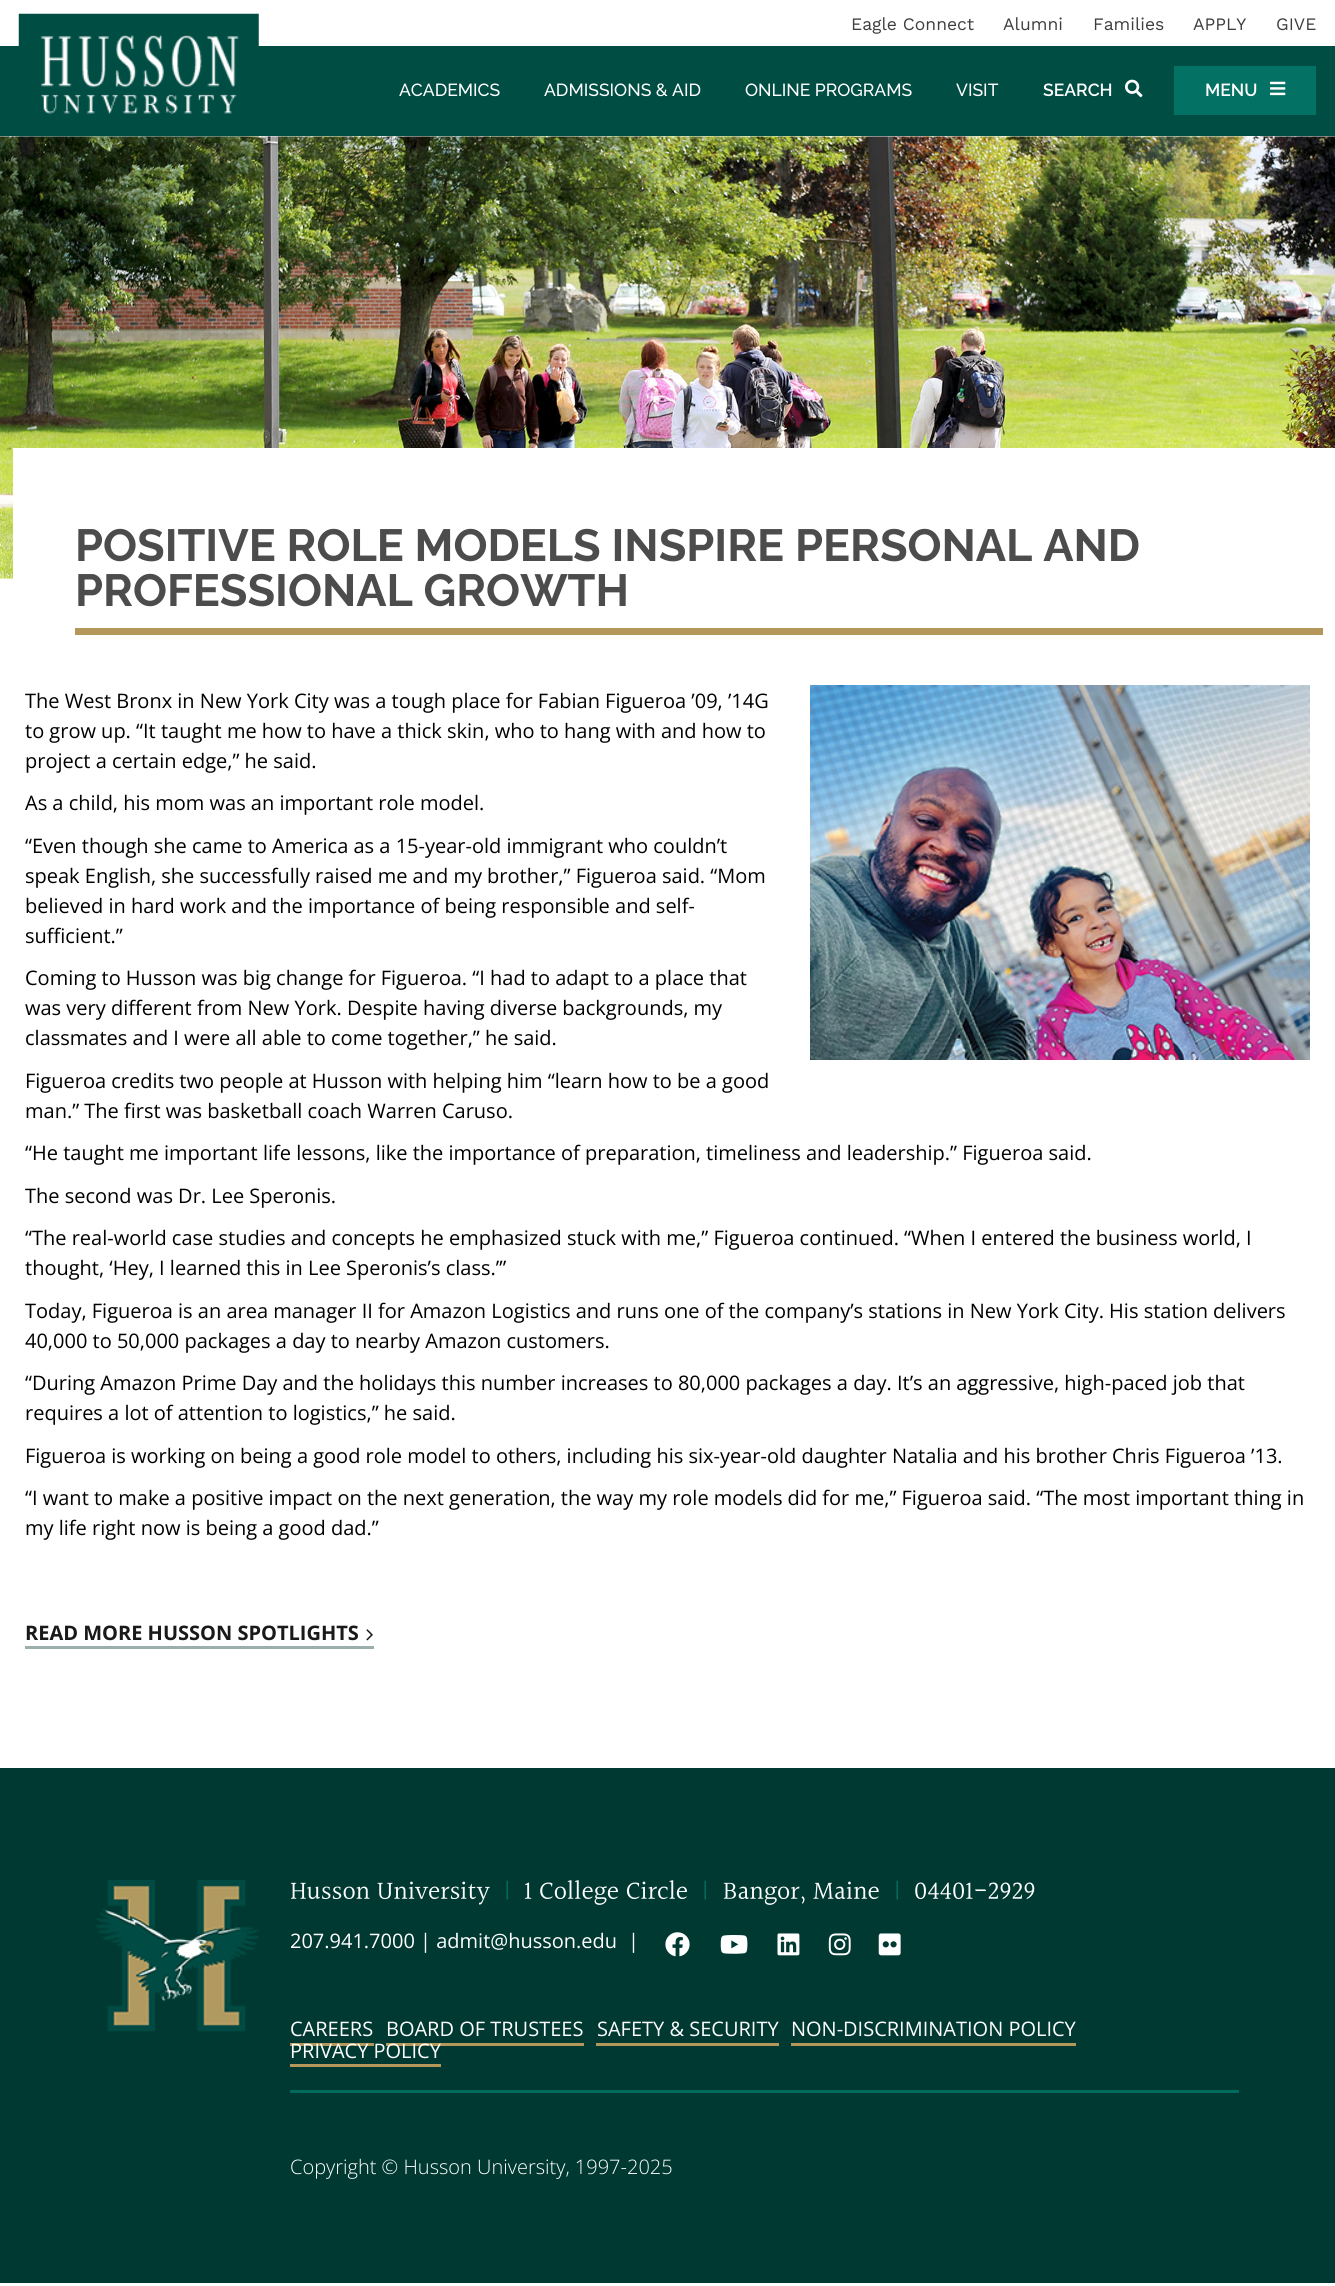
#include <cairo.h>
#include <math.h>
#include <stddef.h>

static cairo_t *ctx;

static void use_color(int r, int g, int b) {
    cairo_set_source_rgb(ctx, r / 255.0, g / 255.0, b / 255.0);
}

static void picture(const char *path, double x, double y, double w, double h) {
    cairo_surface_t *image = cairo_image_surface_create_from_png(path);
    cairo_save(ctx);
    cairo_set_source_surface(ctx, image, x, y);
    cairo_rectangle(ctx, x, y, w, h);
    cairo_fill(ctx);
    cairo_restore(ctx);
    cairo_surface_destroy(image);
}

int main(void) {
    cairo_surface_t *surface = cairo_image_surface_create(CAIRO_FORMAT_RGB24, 1335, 2286);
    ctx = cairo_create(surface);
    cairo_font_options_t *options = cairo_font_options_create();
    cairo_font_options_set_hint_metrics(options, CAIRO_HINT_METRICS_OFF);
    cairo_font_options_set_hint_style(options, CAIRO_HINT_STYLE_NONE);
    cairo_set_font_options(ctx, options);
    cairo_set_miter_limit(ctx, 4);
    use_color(255, 255, 255);
    cairo_paint(ctx);
    cairo_select_font_face(ctx, "Work Sans", CAIRO_FONT_SLANT_NORMAL, CAIRO_FONT_WEIGHT_NORMAL);
    cairo_set_font_size(ctx, 17.5);
    use_color(62, 62, 62);
    cairo_move_to(ctx, 851, 30);
    cairo_show_text(ctx, "Eagle Connect");
    cairo_move_to(ctx, 1003, 30);
    cairo_show_text(ctx, "Alumni");
    cairo_move_to(ctx, 1093, 30);
    cairo_show_text(ctx, "Families");
    cairo_move_to(ctx, 1193, 30);
    cairo_show_text(ctx, "APPLY");
    cairo_move_to(ctx, 1276, 30);
    cairo_show_text(ctx, "GIVE");
    use_color(0, 77, 67);
    cairo_rectangle(ctx, 0, 46, 1335, 90);
    cairo_fill(ctx);
    picture("img4.png", 0, 136, 1335, 443);
    picture("img1.png", 18, 13, 241, 124);
    cairo_select_font_face(ctx, "Raleway Medium", CAIRO_FONT_SLANT_NORMAL, CAIRO_FONT_WEIGHT_NORMAL);
    use_color(255, 255, 255);
    cairo_move_to(ctx, 399, 96);
    cairo_show_text(ctx, "ACADEMICS");
    cairo_move_to(ctx, 544, 96);
    cairo_show_text(ctx, "ADMISSIONS & AID");
    cairo_move_to(ctx, 745, 96);
    cairo_show_text(ctx, "ONLINE PROGRAMS");
    cairo_move_to(ctx, 956, 96);
    cairo_show_text(ctx, "VISIT");
    cairo_select_font_face(ctx, "Raleway SemiBold", CAIRO_FONT_SLANT_NORMAL, CAIRO_FONT_WEIGHT_NORMAL);
    cairo_move_to(ctx, 1043, 96);
    cairo_show_text(ctx, "SEARCH");
    picture("img2.png", 1125, 79, 18, 19);
    use_color(3, 113, 99);
    cairo_rectangle(ctx, 1174, 66, 142, 49);
    cairo_fill(ctx);
    use_color(255, 255, 255);
    cairo_move_to(ctx, 1205, 96);
    cairo_show_text(ctx, "MENU");
    picture("img3.png", 1270, 81, 16, 15);
    cairo_rectangle(ctx, 13, 448, 1322, 131);
    cairo_fill(ctx);
    use_color(180, 151, 90);
    cairo_rectangle(ctx, 75, 628, 1248, 7);
    cairo_fill(ctx);
    cairo_select_font_face(ctx, "Raleway", CAIRO_FONT_SLANT_NORMAL, CAIRO_FONT_WEIGHT_BOLD);
    cairo_set_font_size(ctx, 45);
    use_color(76, 76, 76);
    cairo_move_to(ctx, 75, 561);
    cairo_show_text(ctx, "POSITIVE ROLE MODELS INSPIRE PERSONAL AND");
    cairo_move_to(ctx, 75, 606);
    cairo_show_text(ctx, "PROFESSIONAL GROWTH");
    cairo_select_font_face(ctx, "Open Sans", CAIRO_FONT_SLANT_NORMAL, CAIRO_FONT_WEIGHT_NORMAL);
    cairo_set_font_size(ctx, 20);
    use_color(0, 0, 0);
    cairo_move_to(ctx, 25, 708);
    cairo_show_text(ctx, "The West Bronx in New York City was a tough place for Fabian Figueroa ’09, ’14G");
    picture("img5.png", 810, 685, 500, 375);
    cairo_move_to(ctx, 25, 738);
    cairo_show_text(ctx, "to grow up. “It taught me how to have a thick skin, who to hang with and how to");
    cairo_move_to(ctx, 25, 768);
    cairo_show_text(ctx, "project a certain edge,” he said.");
    cairo_move_to(ctx, 25, 810);
    cairo_show_text(ctx, "As a child, his mom was an important role model.");
    cairo_move_to(ctx, 25, 853);
    cairo_show_text(ctx, "“Even though she came to America as a 15-year-old immigrant who couldn’t");
    cairo_move_to(ctx, 25, 883);
    cairo_show_text(ctx, "speak English, she successfully raised me and my brother,” Figueroa said. “Mom");
    cairo_move_to(ctx, 25, 913);
    cairo_show_text(ctx, "believed in hard work and the importance of being responsible and self-");
    cairo_move_to(ctx, 25, 943);
    cairo_show_text(ctx, "sufficient.”");
    cairo_move_to(ctx, 25, 985);
    cairo_show_text(ctx, "Coming to Husson was big change for Figueroa. “I had to adapt to a place that");
    cairo_move_to(ctx, 25, 1015);
    cairo_show_text(ctx, "was very different from New York. Despite having diverse backgrounds, my");
    cairo_move_to(ctx, 25, 1045);
    cairo_show_text(ctx, "classmates and I were all able to come together,” he said.");
    cairo_move_to(ctx, 25, 1088);
    cairo_show_text(ctx, "Figueroa credits two people at Husson with helping him “learn how to be a good");
    cairo_move_to(ctx, 25, 1118);
    cairo_show_text(ctx, "man.” The first was basketball coach Warren Caruso.");
    cairo_move_to(ctx, 25, 1160);
    cairo_show_text(ctx, "“He taught me important life lessons, like the importance of preparation, timeliness and leadership.” Figueroa said.");
    cairo_move_to(ctx, 25, 1203);
    cairo_show_text(ctx, "The second was Dr. Lee Speronis.");
    cairo_move_to(ctx, 25, 1245);
    cairo_show_text(ctx, "“The real-world case studies and concepts he emphasized stuck with me,” Figueroa continued. “When I entered the business world, I");
    cairo_move_to(ctx, 25, 1275);
    cairo_show_text(ctx, "thought, ‘Hey, I learned this in Lee Speronis’s class.’”");
    cairo_move_to(ctx, 25, 1318);
    cairo_show_text(ctx, "Today, Figueroa is an area manager II for Amazon Logistics and runs one of the company’s stations in New York City. His station delivers");
    cairo_move_to(ctx, 25, 1348);
    cairo_show_text(ctx, "40,000 to 50,000 packages a day to nearby Amazon customers.");
    cairo_move_to(ctx, 25, 1390);
    cairo_show_text(ctx, "“During Amazon Prime Day and the holidays this number increases to 80,000 packages a day. It’s an aggressive, high-paced job that");
    cairo_move_to(ctx, 25, 1420);
    cairo_show_text(ctx, "requires a lot of attention to logistics,” he said.");
    cairo_move_to(ctx, 25, 1463);
    cairo_show_text(ctx, "Figueroa is working on being a good role model to others, including his six-year-old daughter Natalia and his brother Chris Figueroa ’13.");
    cairo_move_to(ctx, 25, 1505);
    cairo_show_text(ctx, "“I want to make a positive impact on the next generation, the way my role models did for me,” Figueroa said. “The most important thing in");
    cairo_move_to(ctx, 25, 1535);
    cairo_show_text(ctx, "my life right now is being a good dad.”");
    use_color(157, 175, 172);
    cairo_rectangle(ctx, 25, 1646, 349, 3);
    cairo_fill(ctx);
    cairo_select_font_face(ctx, "Open Sans", CAIRO_FONT_SLANT_NORMAL, CAIRO_FONT_WEIGHT_BOLD);
    use_color(25, 25, 25);
    cairo_move_to(ctx, 25, 1640);
    cairo_show_text(ctx, "READ MORE HUSSON SPOTLIGHTS");
    picture("img6.png", 366, 1629, 7, 12);
    use_color(0, 57, 49);
    cairo_rectangle(ctx, 0, 1768, 1335, 515);
    cairo_fill(ctx);
    picture("img7.png", 96, 1880, 163, 152);
    cairo_select_font_face(ctx, "Halant", CAIRO_FONT_SLANT_NORMAL, CAIRO_FONT_WEIGHT_NORMAL);
    cairo_set_font_size(ctx, 26);
    use_color(255, 255, 255);
    cairo_move_to(ctx, 290, 1900);
    cairo_show_text(ctx, "Husson University");
    use_color(0, 107, 93);
    cairo_move_to(ctx, 503, 1900);
    cairo_show_text(ctx, "|");
    use_color(255, 255, 255);
    cairo_move_to(ctx, 524, 1900);
    cairo_show_text(ctx, "1 College Circle");
    use_color(0, 107, 93);
    cairo_move_to(ctx, 701, 1900);
    cairo_show_text(ctx, "|");
    use_color(255, 255, 255);
    cairo_move_to(ctx, 723, 1900);
    cairo_show_text(ctx, "Bangor, Maine");
    use_color(0, 107, 93);
    cairo_move_to(ctx, 893, 1900);
    cairo_show_text(ctx, "|");
    use_color(255, 255, 255);
    cairo_move_to(ctx, 914, 1900);
    cairo_show_text(ctx, "04401-2929");
    cairo_select_font_face(ctx, "Open Sans", CAIRO_FONT_SLANT_NORMAL, CAIRO_FONT_WEIGHT_NORMAL);
    cairo_set_font_size(ctx, 20);
    cairo_move_to(ctx, 290, 1948);
    cairo_show_text(ctx, "207.941.7000 | admit@husson.edu");
    cairo_move_to(ctx, 628, 1948);
    cairo_show_text(ctx, "|");
    picture("img8.png", 665, 1932, 25, 25);
    picture("img9.png", 720, 1935, 28, 19);
    picture("img10.png", 777, 1933, 23, 23);
    picture("img11.png", 828, 1933, 23, 23);
    picture("img12.png", 878, 1933, 23, 23);
    cairo_move_to(ctx, 290, 2036);
    cairo_show_text(ctx, "CAREERS");
    use_color(180, 151, 90);
    cairo_rectangle(ctx, 290, 2043, 84, 3);
    cairo_fill(ctx);
    use_color(255, 255, 255);
    cairo_move_to(ctx, 386, 2036);
    cairo_show_text(ctx, "BOARD OF TRUSTEES");
    use_color(180, 151, 90);
    cairo_rectangle(ctx, 386, 2043, 198, 3);
    cairo_fill(ctx);
    use_color(255, 255, 255);
    cairo_move_to(ctx, 597, 2036);
    cairo_show_text(ctx, "SAFETY & SECURITY");
    use_color(180, 151, 90);
    cairo_rectangle(ctx, 596, 2043, 183, 3);
    cairo_fill(ctx);
    use_color(255, 255, 255);
    cairo_move_to(ctx, 791, 2036);
    cairo_show_text(ctx, "NON-DISCRIMINATION POLICY");
    use_color(180, 151, 90);
    cairo_rectangle(ctx, 791, 2043, 285, 3);
    cairo_fill(ctx);
    use_color(255, 255, 255);
    cairo_move_to(ctx, 290, 2058);
    cairo_show_text(ctx, "PRIVACY POLICY");
    use_color(180, 151, 90);
    cairo_rectangle(ctx, 290, 2064, 151, 3);
    cairo_fill(ctx);
    use_color(0, 107, 93);
    cairo_rectangle(ctx, 290, 2090, 949, 3);
    cairo_fill(ctx);
    cairo_select_font_face(ctx, "Open Sans Light", CAIRO_FONT_SLANT_NORMAL, CAIRO_FONT_WEIGHT_NORMAL);
    use_color(255, 255, 255);
    cairo_move_to(ctx, 290, 2174);
    cairo_show_text(ctx, "Copyright © Husson University, 1997-2025");
    cairo_surface_write_to_png(surface, "result.png");
    cairo_font_options_destroy(options);
    cairo_destroy(ctx);
    cairo_surface_destroy(surface);
    return 0;
}
